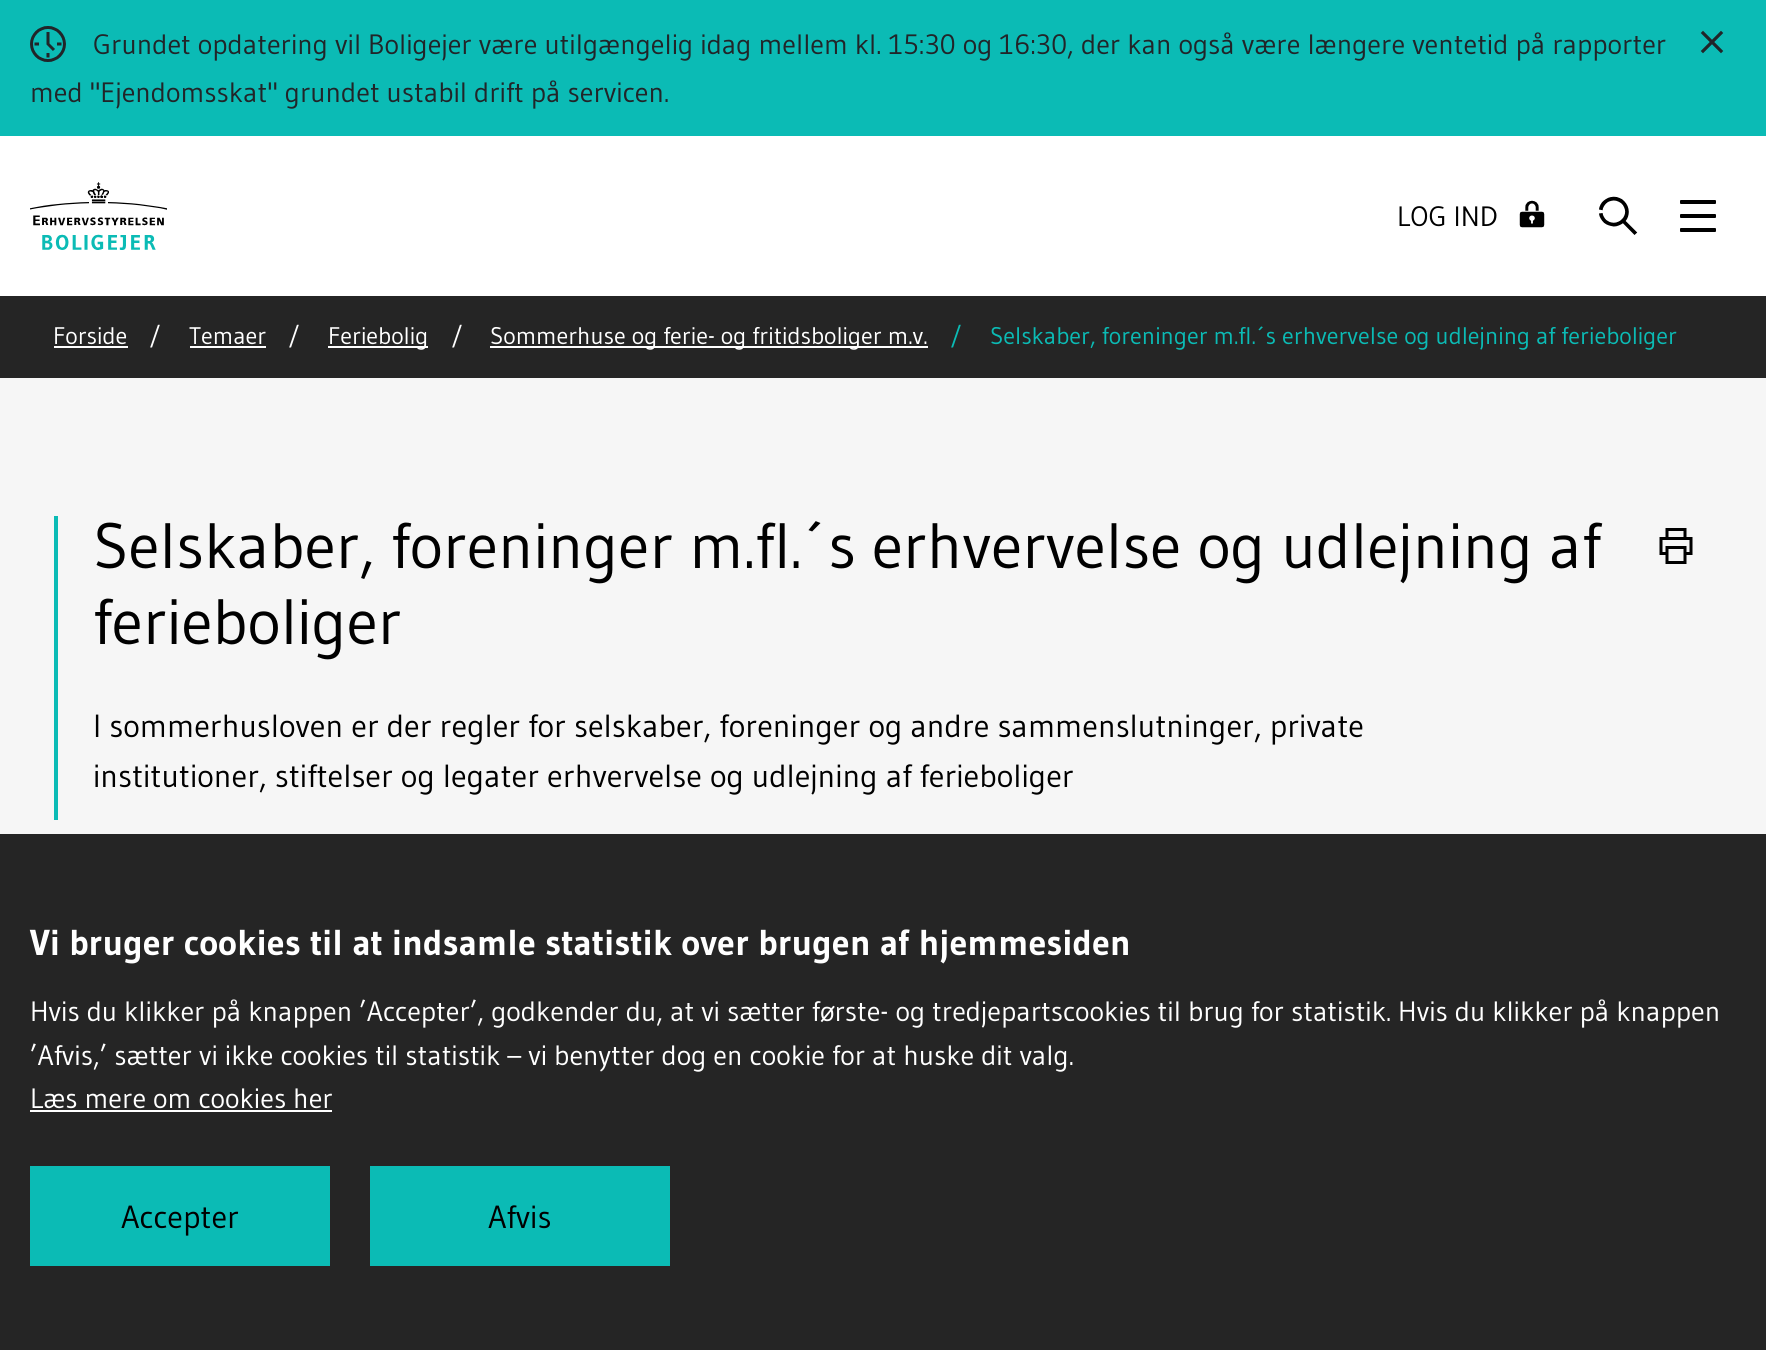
#include <cairo.h>
#include <math.h>
#include <stddef.h>

static cairo_t *ctx;

static void use_color(int r, int g, int b) {
    cairo_set_source_rgb(ctx, r / 255.0, g / 255.0, b / 255.0);
}

static void round_rect(double x, double y, double w, double h, double r) {
    cairo_new_sub_path(ctx);
    cairo_arc(ctx, x + w - r, y + h - r, r, 0, M_PI / 2);
    cairo_arc(ctx, x + r, y + h - r, r, M_PI / 2, M_PI);
    cairo_arc(ctx, x + r, y + r, r, M_PI, 1.5 * M_PI);
    cairo_arc(ctx, x + w - r, y + r, r, 1.5 * M_PI, 2 * M_PI);
    cairo_close_path(ctx);
}

static void picture(const char *path, double x, double y, double w, double h) {
    cairo_surface_t *image = cairo_image_surface_create_from_png(path);
    cairo_save(ctx);
    cairo_set_source_surface(ctx, image, x, y);
    cairo_rectangle(ctx, x, y, w, h);
    cairo_fill(ctx);
    cairo_restore(ctx);
    cairo_surface_destroy(image);
}

int main(void) {
    cairo_surface_t *surface = cairo_image_surface_create(CAIRO_FORMAT_RGB24, 1766, 1350);
    ctx = cairo_create(surface);
    cairo_font_options_t *options = cairo_font_options_create();
    cairo_font_options_set_hint_metrics(options, CAIRO_HINT_METRICS_OFF);
    cairo_font_options_set_hint_style(options, CAIRO_HINT_STYLE_NONE);
    cairo_set_font_options(ctx, options);
    cairo_set_miter_limit(ctx, 4);
    use_color(255, 255, 255);
    cairo_paint(ctx);
    use_color(11, 187, 181);
    cairo_rectangle(ctx, 0, 0, 1766, 136);
    cairo_fill(ctx);
    picture("img1.png", 30, 26, 36, 36);
    cairo_select_font_face(ctx, "Gudea", CAIRO_FONT_SLANT_NORMAL, CAIRO_FONT_WEIGHT_NORMAL);
    cairo_set_font_size(ctx, 28);
    use_color(33, 37, 41);
    cairo_move_to(ctx, 93, 54);
    cairo_show_text(ctx, "Grundet opdatering vil Boligejer være utilgængelig idag mellem kl. 15:30 og 16:30, der kan også være længere ventetid på rapporter");
    cairo_move_to(ctx, 30, 102);
    cairo_show_text(ctx, "med \"Ejendomsskat\" grundet ustabil drift på servicen.");
    picture("img2.png", 1700, 30, 24, 24);
    picture("img3.png", 30, 182, 137, 68);
    use_color(0, 0, 0);
    cairo_move_to(ctx, 1397, 226);
    cairo_show_text(ctx, "LOG IND");
    picture("img4.png", 1519, 200, 26, 28);
    picture("img5.png", 1599, 196, 39, 39);
    round_rect(1680, 200, 36, 4, 1);
    cairo_fill(ctx);
    round_rect(1680, 214, 36, 4, 1);
    cairo_fill(ctx);
    round_rect(1680, 228, 36, 4, 1);
    cairo_fill(ctx);
    use_color(37, 37, 37);
    cairo_rectangle(ctx, 0, 296, 1766, 82);
    cairo_fill(ctx);
    cairo_set_font_size(ctx, 24);
    use_color(255, 255, 255);
    cairo_move_to(ctx, 53, 344);
    cairo_show_text(ctx, "Forside");
    cairo_rectangle(ctx, 54, 346, 74, 2);
    cairo_fill(ctx);
    cairo_move_to(ctx, 149, 344);
    cairo_show_text(ctx, "/");
    cairo_move_to(ctx, 189, 344);
    cairo_show_text(ctx, "Temaer");
    cairo_rectangle(ctx, 190, 346, 76, 2);
    cairo_fill(ctx);
    cairo_move_to(ctx, 288, 344);
    cairo_show_text(ctx, "/");
    cairo_rectangle(ctx, 328, 346, 100, 2);
    cairo_fill(ctx);
    cairo_move_to(ctx, 328, 344);
    cairo_show_text(ctx, "Feriebolig");
    cairo_move_to(ctx, 451, 344);
    cairo_show_text(ctx, "/");
    cairo_rectangle(ctx, 490, 346, 438, 2);
    cairo_fill(ctx);
    cairo_move_to(ctx, 490, 344);
    cairo_show_text(ctx, "Sommerhuse og ferie- og fritidsboliger m.v.");
    use_color(11, 187, 181);
    cairo_move_to(ctx, 950, 344);
    cairo_show_text(ctx, "/");
    cairo_move_to(ctx, 990, 344);
    cairo_show_text(ctx, "Selskaber, foreninger m.fl.´s erhvervelse og udlejning af ferieboliger");
    use_color(246, 246, 246);
    cairo_rectangle(ctx, 0, 378, 1766, 456);
    cairo_fill(ctx);
    use_color(11, 187, 181);
    cairo_rectangle(ctx, 54, 516, 4, 304);
    cairo_fill(ctx);
    cairo_set_font_size(ctx, 64);
    use_color(0, 0, 0);
    cairo_move_to(ctx, 93, 568);
    cairo_show_text(ctx, "Selskaber, foreninger m.fl.´s erhvervelse og udlejning af");
    cairo_move_to(ctx, 93, 644);
    cairo_show_text(ctx, "ferieboliger");
    cairo_set_font_size(ctx, 32);
    cairo_move_to(ctx, 93, 737);
    cairo_show_text(ctx, "I sommerhusloven er der regler for selskaber, foreninger og andre sammenslutninger, private");
    cairo_move_to(ctx, 93, 787);
    cairo_show_text(ctx, "institutioner, stiftelser og legater erhvervelse og udlejning af ferieboliger");
    picture("img6.png", 1659, 528, 34, 36);
    use_color(37, 37, 37);
    cairo_rectangle(ctx, 0, 834, 1766, 516);
    cairo_fill(ctx);
    cairo_select_font_face(ctx, "Gudea", CAIRO_FONT_SLANT_NORMAL, CAIRO_FONT_WEIGHT_BOLD);
    cairo_set_font_size(ctx, 36);
    use_color(255, 255, 255);
    cairo_move_to(ctx, 30, 955);
    cairo_show_text(ctx, "Vi bruger cookies til at indsamle statistik over brugen af hjemmesiden");
    cairo_select_font_face(ctx, "Gudea", CAIRO_FONT_SLANT_NORMAL, CAIRO_FONT_WEIGHT_NORMAL);
    cairo_set_font_size(ctx, 28);
    cairo_move_to(ctx, 30, 1021);
    cairo_show_text(ctx, "Hvis du klikker på knappen ’Accepter’, godkender du, at vi sætter første- og tredjepartscookies til brug for statistik. Hvis du klikker på knappen");
    cairo_move_to(ctx, 30, 1065);
    cairo_show_text(ctx, "’Afvis,’ sætter vi ikke cookies til statistik – vi benytter dog en cookie for at huske dit valg.");
    cairo_move_to(ctx, 30, 1108);
    cairo_show_text(ctx, "Læs mere om cookies her");
    cairo_rectangle(ctx, 30, 1110, 302, 2);
    cairo_fill(ctx);
    use_color(11, 187, 181);
    cairo_rectangle(ctx, 30, 1166, 300, 100);
    cairo_fill(ctx);
    cairo_set_font_size(ctx, 32);
    use_color(0, 0, 0);
    cairo_move_to(ctx, 121, 1228);
    cairo_show_text(ctx, "Accepter");
    use_color(11, 187, 181);
    cairo_rectangle(ctx, 370, 1166, 300, 100);
    cairo_fill(ctx);
    use_color(0, 0, 0);
    cairo_move_to(ctx, 488, 1228);
    cairo_show_text(ctx, "Afvis");
    cairo_surface_write_to_png(surface, "result.png");
    cairo_font_options_destroy(options);
    cairo_destroy(ctx);
    cairo_surface_destroy(surface);
    return 0;
}
